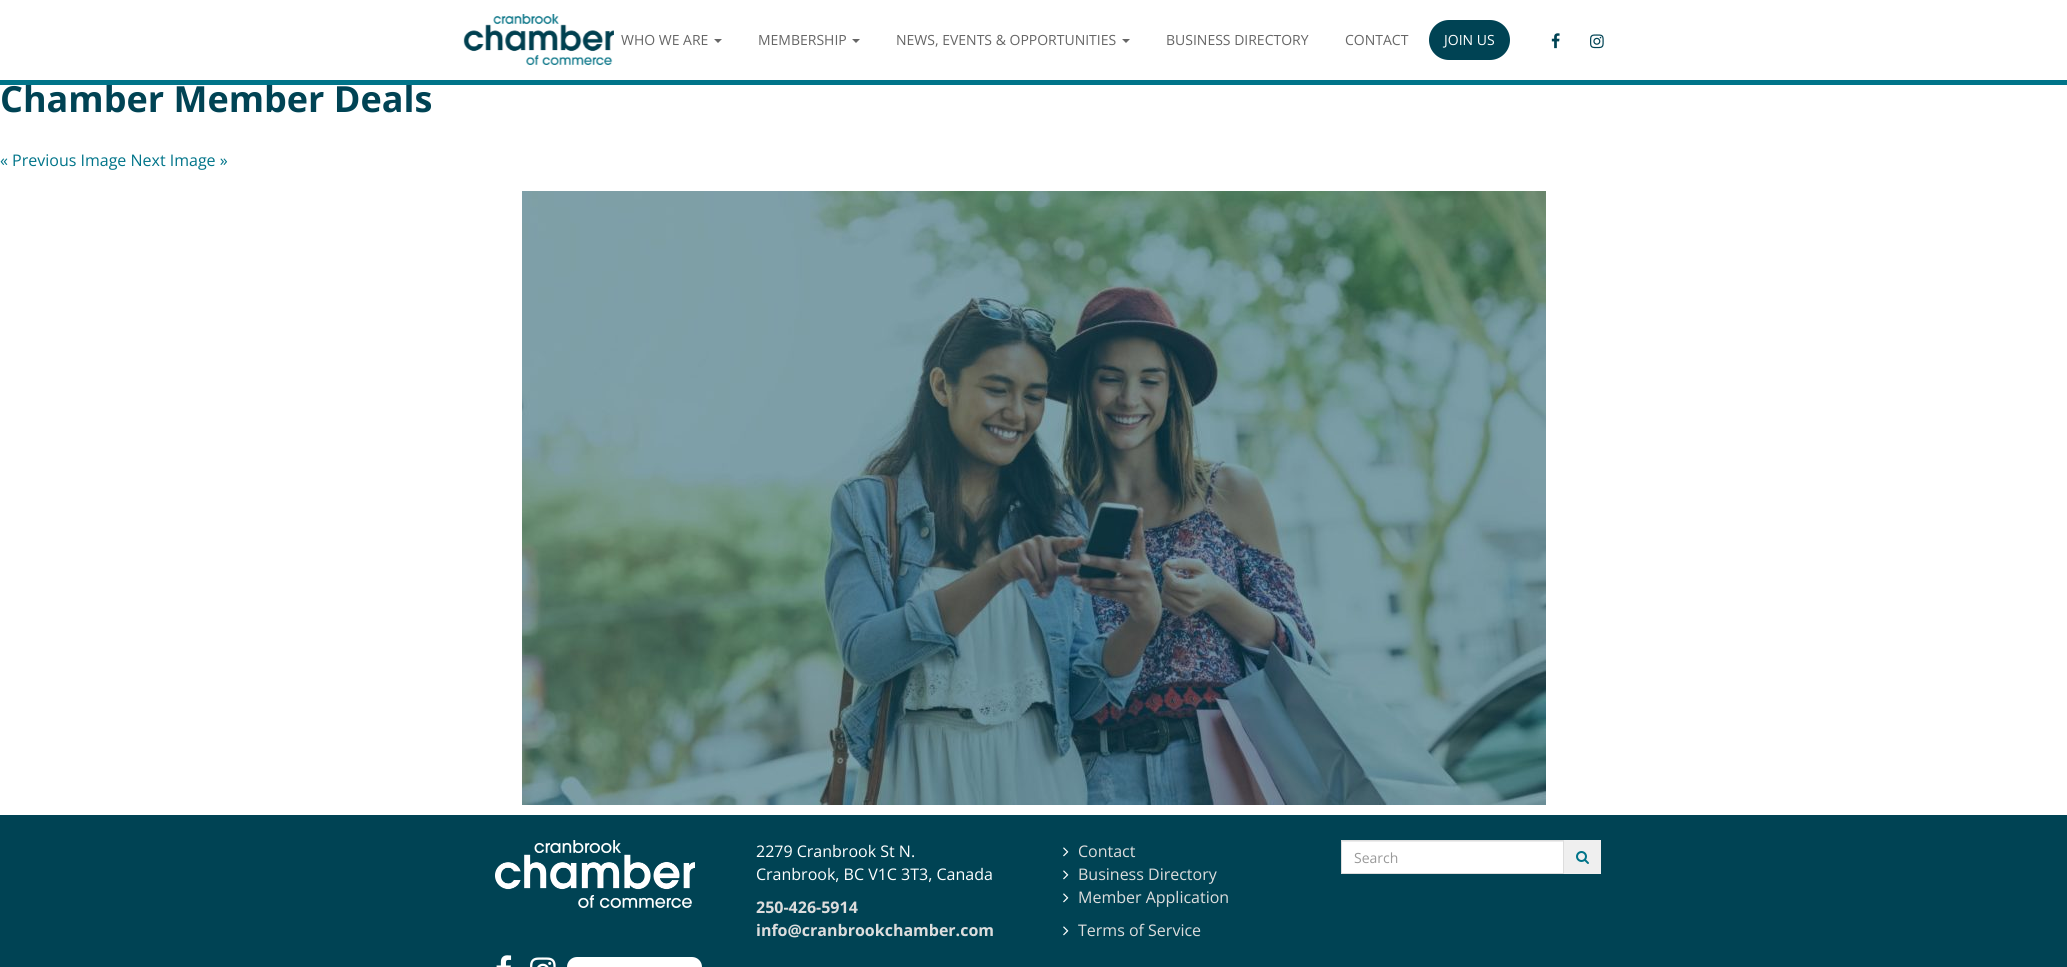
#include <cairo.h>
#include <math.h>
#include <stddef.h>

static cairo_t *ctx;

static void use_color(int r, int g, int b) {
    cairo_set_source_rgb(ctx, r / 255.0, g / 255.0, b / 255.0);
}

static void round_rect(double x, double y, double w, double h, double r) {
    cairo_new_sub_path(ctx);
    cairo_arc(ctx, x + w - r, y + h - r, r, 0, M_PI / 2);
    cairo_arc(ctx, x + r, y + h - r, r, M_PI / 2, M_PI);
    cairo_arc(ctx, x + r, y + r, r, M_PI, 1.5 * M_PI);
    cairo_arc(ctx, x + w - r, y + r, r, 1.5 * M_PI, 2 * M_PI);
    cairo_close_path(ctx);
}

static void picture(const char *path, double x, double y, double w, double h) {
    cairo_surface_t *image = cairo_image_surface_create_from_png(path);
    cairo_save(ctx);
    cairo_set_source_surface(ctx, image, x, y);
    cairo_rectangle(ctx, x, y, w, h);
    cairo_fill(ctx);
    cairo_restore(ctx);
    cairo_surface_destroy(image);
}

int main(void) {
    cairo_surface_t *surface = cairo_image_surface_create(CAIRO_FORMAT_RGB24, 2067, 967);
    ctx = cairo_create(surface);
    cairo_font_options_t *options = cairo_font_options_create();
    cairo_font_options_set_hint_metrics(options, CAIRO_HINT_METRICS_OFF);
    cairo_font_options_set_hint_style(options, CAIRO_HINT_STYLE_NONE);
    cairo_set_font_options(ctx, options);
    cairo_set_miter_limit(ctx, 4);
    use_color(255, 255, 255);
    cairo_paint(ctx);
    cairo_select_font_face(ctx, "Open Sans", CAIRO_FONT_SLANT_NORMAL, CAIRO_FONT_WEIGHT_BOLD);
    cairo_set_font_size(ctx, 36);
    use_color(0, 67, 84);
    cairo_move_to(ctx, 0, 112);
    cairo_show_text(ctx, "Chamber Member Deals");
    use_color(0, 116, 137);
    cairo_rectangle(ctx, 0, 80, 2067, 5);
    cairo_fill(ctx);
    picture("img1.png", 463, 14, 151, 51);
    cairo_select_font_face(ctx, "Open Sans", CAIRO_FONT_SLANT_NORMAL, CAIRO_FONT_WEIGHT_NORMAL);
    cairo_set_font_size(ctx, 14);
    use_color(102, 102, 102);
    cairo_move_to(ctx, 621, 45);
    cairo_show_text(ctx, "WHO WE ARE");
    cairo_new_path(ctx);
    cairo_move_to(ctx, 714, 39);
    cairo_line_to(ctx, 722, 39);
    cairo_line_to(ctx, 718, 43);
    cairo_close_path(ctx);
    cairo_fill(ctx);
    cairo_move_to(ctx, 758, 45);
    cairo_show_text(ctx, "MEMBERSHIP");
    cairo_new_path(ctx);
    cairo_move_to(ctx, 852, 39);
    cairo_line_to(ctx, 860, 39);
    cairo_line_to(ctx, 856, 43);
    cairo_close_path(ctx);
    cairo_fill(ctx);
    cairo_move_to(ctx, 896, 45);
    cairo_show_text(ctx, "NEWS, EVENTS & OPPORTUNITIES");
    cairo_new_path(ctx);
    cairo_move_to(ctx, 1122, 39);
    cairo_line_to(ctx, 1130, 39);
    cairo_line_to(ctx, 1126, 43);
    cairo_close_path(ctx);
    cairo_fill(ctx);
    cairo_move_to(ctx, 1166, 45);
    cairo_show_text(ctx, "BUSINESS DIRECTORY");
    cairo_move_to(ctx, 1345, 45);
    cairo_show_text(ctx, "CONTACT");
    use_color(0, 67, 84);
    round_rect(1429, 20, 81, 40, 20);
    cairo_fill(ctx);
    use_color(255, 255, 255);
    cairo_move_to(ctx, 1444, 45);
    cairo_show_text(ctx, "JOIN US");
    picture("img2.png", 1551, 33, 9, 16);
    picture("img3.png", 1590, 34, 14, 15);
    cairo_set_font_size(ctx, 16);
    use_color(0, 116, 137);
    cairo_move_to(ctx, 0, 166);
    cairo_show_text(ctx, "« Previous Image Next Image »");
    picture("img4.png", 522, 191, 1024, 614);
    use_color(0, 67, 84);
    cairo_rectangle(ctx, 0, 815, 2067, 152);
    cairo_fill(ctx);
    picture("img5.png", 495, 840, 200, 68);
    picture("img6.png", 496, 955, 16, 12);
    picture("img7.png", 530, 957, 26, 10);
    use_color(255, 255, 255);
    round_rect(567, 957, 135, 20, 10);
    cairo_fill(ctx);
    cairo_move_to(ctx, 756, 857);
    cairo_show_text(ctx, "2279 Cranbrook St N.");
    cairo_move_to(ctx, 756, 880);
    cairo_show_text(ctx, "Cranbrook, BC V1C 3T3, Canada");
    cairo_select_font_face(ctx, "Open Sans", CAIRO_FONT_SLANT_NORMAL, CAIRO_FONT_WEIGHT_BOLD);
    use_color(221, 221, 221);
    cairo_move_to(ctx, 756, 913);
    cairo_show_text(ctx, "250-426-5914");
    cairo_move_to(ctx, 756, 936);
    cairo_show_text(ctx, "info@cranbrookchamber.com");
    picture("img8.png", 1063, 847, 6, 10);
    cairo_select_font_face(ctx, "Open Sans", CAIRO_FONT_SLANT_NORMAL, CAIRO_FONT_WEIGHT_NORMAL);
    cairo_move_to(ctx, 1078, 857);
    cairo_show_text(ctx, "Contact");
    picture("img8.png", 1063, 870, 6, 10);
    cairo_move_to(ctx, 1078, 880);
    cairo_show_text(ctx, "Business Directory");
    picture("img8.png", 1063, 893, 6, 10);
    cairo_move_to(ctx, 1078, 903);
    cairo_show_text(ctx, "Member Application");
    picture("img8.png", 1063, 926, 6, 10);
    cairo_move_to(ctx, 1078, 936);
    cairo_show_text(ctx, "Terms of Service");
    use_color(255, 255, 255);
    cairo_rectangle(ctx, 1342, 842, 221, 31);
    cairo_fill(ctx);
    use_color(236, 236, 236);
    cairo_rectangle(ctx, 1342, 841, 221, 1);
    cairo_fill(ctx);
    cairo_rectangle(ctx, 1341.5, 840.5, 222, 33);
    use_color(221, 221, 221);
    cairo_set_line_width(ctx, 1);
    cairo_stroke(ctx);
    cairo_set_font_size(ctx, 14);
    use_color(153, 153, 153);
    cairo_move_to(ctx, 1354, 863);
    cairo_show_text(ctx, "Search");
    use_color(239, 239, 239);
    cairo_rectangle(ctx, 1564, 840, 37, 34);
    cairo_fill(ctx);
    picture("img9.png", 1576, 851, 13, 13);
    cairo_surface_write_to_png(surface, "result.png");
    cairo_font_options_destroy(options);
    cairo_destroy(ctx);
    cairo_surface_destroy(surface);
    return 0;
}
